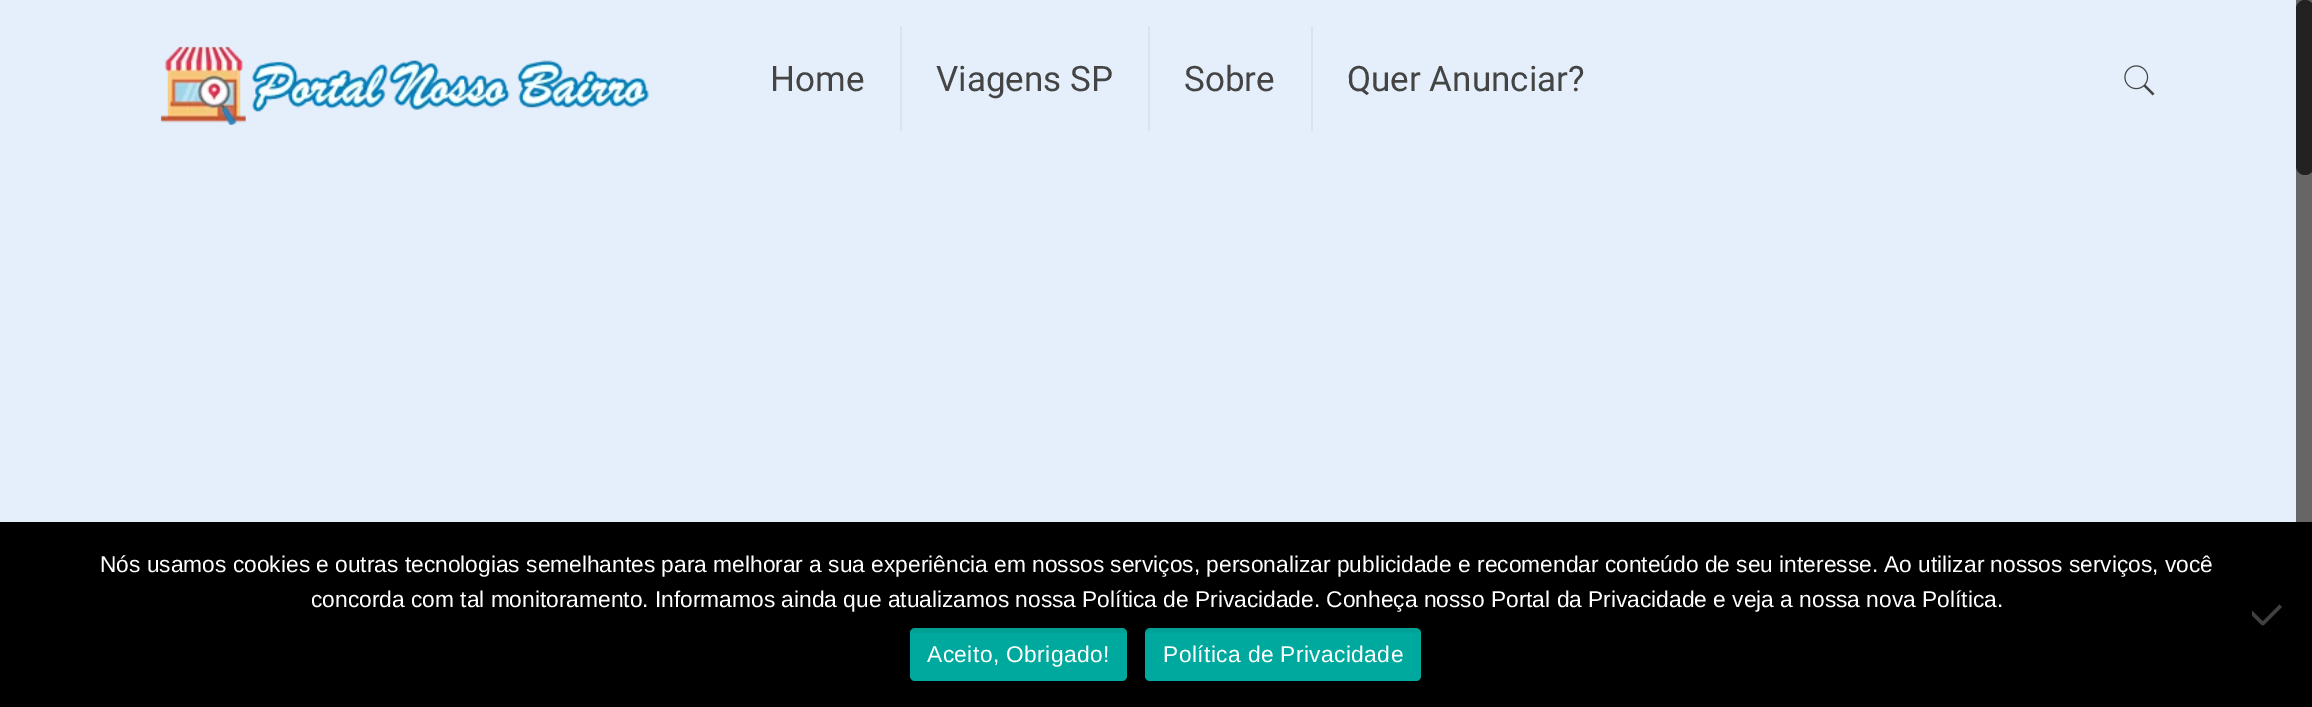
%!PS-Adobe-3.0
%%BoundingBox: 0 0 2312 707
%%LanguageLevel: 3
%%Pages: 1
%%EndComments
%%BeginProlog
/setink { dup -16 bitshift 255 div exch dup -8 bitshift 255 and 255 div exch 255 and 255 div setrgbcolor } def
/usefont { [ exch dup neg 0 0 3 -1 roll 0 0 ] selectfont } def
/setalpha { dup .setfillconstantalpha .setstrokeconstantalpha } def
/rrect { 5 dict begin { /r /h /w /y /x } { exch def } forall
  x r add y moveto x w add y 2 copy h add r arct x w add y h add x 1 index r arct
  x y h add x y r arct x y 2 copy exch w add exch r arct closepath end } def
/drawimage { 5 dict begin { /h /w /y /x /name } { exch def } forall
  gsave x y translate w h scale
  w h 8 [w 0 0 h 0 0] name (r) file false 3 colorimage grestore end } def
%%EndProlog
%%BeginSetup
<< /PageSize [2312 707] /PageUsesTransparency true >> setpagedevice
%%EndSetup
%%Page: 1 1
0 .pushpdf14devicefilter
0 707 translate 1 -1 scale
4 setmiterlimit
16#E4EFFB setink
0 0 2312 707 rectfill
(img1.raw) 160 46 489 79 drawimage
16#D9E3EE setink
900 26 2 105 rectfill
/Roboto-Regular 35 usefont
16#444444 setink
770 91 moveto (Home) show
16#D9E3EE setink
1148 26 2 105 rectfill
16#444444 setink
936 91 moveto (Viagens SP) show
16#D9E3EE setink
1311 26 2 105 rectfill
16#444444 setink
1184 91 moveto (Sobre) show
1347 91 moveto (Quer Anunciar?) show
(img2.raw) 2124 65 31 31 drawimage
16#666666 setink
2296 0 16 522 rectfill
16#222222 setink
2296 0 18 175 9 rrect fill
16#000000 setink
0 522 2312 185 rectfill
/LiberationSans-Regular 22.75 usefont
16#FFFFFF setink
100 572 moveto (Nós usamos cookies e outras tecnologias semelhantes para melhorar a sua experiência em nossos serviços, personalizar publicidade e recomendar conteúdo de seu interesse. Ao utilizar nossos serviços, você) show
311 607 moveto (concorda com tal monitoramento. Informamos ainda que atualizamos nossa Política de Privacidade. Conheça nosso Portal da Privacidade e veja a nossa nova Política.) show
16#404040 setink
2279.5 604.5 moveto 2282 607 lineto 2263.5 625.5 lineto 2261 623 lineto closepath fill
2252 615.5 moveto 2252 610.5 lineto 2264.5 623 lineto 2262 625.5 lineto closepath fill
16#00A99D setink
910 628 217 53 5 rrect fill
0.05 setalpha
16#000000 setink
911 628 215 5 rectfill
1 setalpha
16#FFFFFF setink
927 662 moveto 0.4 0 (Aceito, Obrigado!) ashow
16#00A99D setink
1145 628 276 53 5 rrect fill
(img3.raw) 1145 628 275 5 drawimage
16#FFFFFF setink
1163 662 moveto 0.4 0 (Política de Privacidade) ashow
.poppdf14devicefilter showpage
%%EOF
